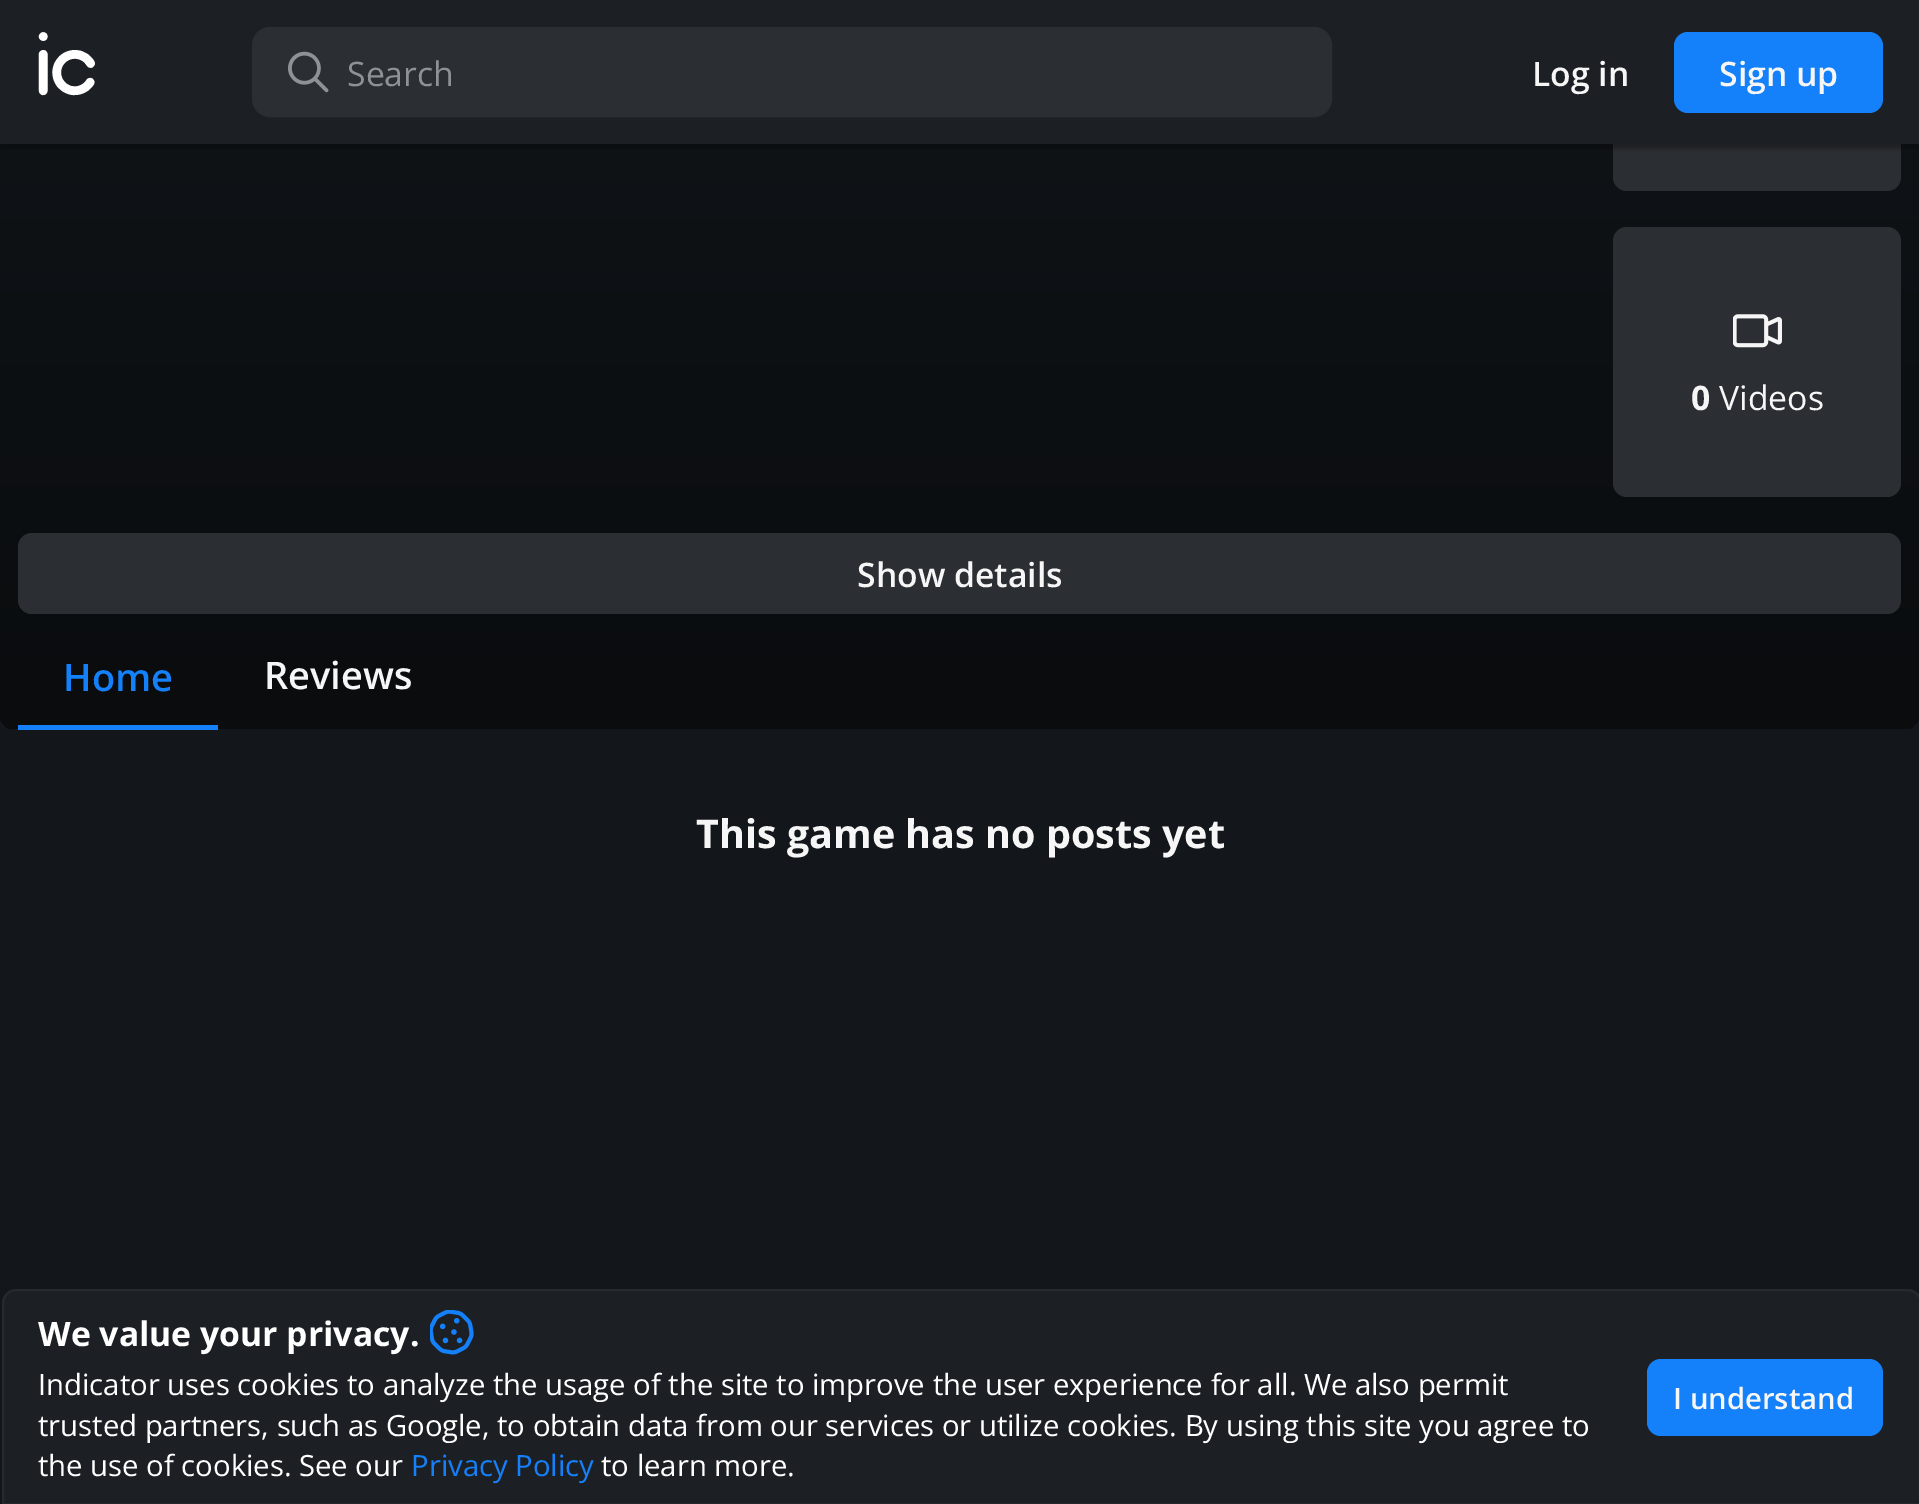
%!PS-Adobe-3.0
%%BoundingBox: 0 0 1919 1504
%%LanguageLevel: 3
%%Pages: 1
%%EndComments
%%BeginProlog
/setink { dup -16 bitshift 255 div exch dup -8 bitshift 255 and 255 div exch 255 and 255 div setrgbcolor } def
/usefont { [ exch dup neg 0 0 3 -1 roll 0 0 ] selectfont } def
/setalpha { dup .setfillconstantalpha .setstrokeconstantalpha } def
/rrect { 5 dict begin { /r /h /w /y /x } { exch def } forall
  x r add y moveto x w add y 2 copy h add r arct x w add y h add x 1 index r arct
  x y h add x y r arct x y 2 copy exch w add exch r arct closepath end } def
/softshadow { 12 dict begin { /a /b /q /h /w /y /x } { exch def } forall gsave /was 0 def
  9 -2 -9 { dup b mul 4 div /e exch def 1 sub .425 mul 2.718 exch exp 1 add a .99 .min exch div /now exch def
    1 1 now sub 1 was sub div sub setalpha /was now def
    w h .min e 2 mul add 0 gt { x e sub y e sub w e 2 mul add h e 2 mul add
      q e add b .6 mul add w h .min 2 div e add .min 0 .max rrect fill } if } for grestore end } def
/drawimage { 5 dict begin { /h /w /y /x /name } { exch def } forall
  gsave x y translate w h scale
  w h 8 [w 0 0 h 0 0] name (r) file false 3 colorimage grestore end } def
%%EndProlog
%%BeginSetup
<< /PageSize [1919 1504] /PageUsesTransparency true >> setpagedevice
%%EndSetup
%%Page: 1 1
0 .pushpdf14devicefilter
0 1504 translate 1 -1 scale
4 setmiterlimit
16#13171B setink
0 0 1919 1504 rectfill
gsave 0 -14 1919 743 14 rrect clip newpath
<< /ShadingType 2 /ColorSpace /DeviceRGB /Coords [960 729 960 -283] /Extend [true true] /Function << /FunctionType 2 /Domain [0 1] /C0 [0.039 0.047 0.055] /C1 [0.075 0.09 0.11] /N 1 >> >> shfill grestore
16#2B2E32 setink
1613 -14 288 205 14 rrect fill
16#000000 setink
0 5 1919 144 0 2 0.3 softshadow
16#1C2024 setink
0 0 1919 144 rectfill
/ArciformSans-Regular 90 usefont
16#FFFFFF setink
36 95 moveto (ic) show
16#2B2E32 setink
254.5 29.5 1075 85 15.5 rrect gsave fill grestore
5 setlinewidth
stroke
(img1.raw) 288 51 41 42 drawimage
/OpenSans-Regular 33.75 usefont
16#8E9297 setink
347 86 moveto (Search) show
/OpenSans-SemiBold 33.75 usefont
16#F6F6F6 setink
1532 86 moveto (Log in) show
16#1480F9 setink
1674 32 209 81 14 rrect fill
16#F6F6F6 setink
1719 86 moveto (Sign up) show
16#2B2E32 setink
1613 227 288 270 14 rrect fill
(img2.raw) 1733 314 49 34 drawimage
/OpenSans-Bold 33.75 usefont
16#F6F6F6 setink
1691 410 moveto (0) show
/OpenSans-Regular 33.75 usefont
1719 410 moveto (Videos) show
16#2B2E32 setink
18 533 1883 81 14 rrect fill
/OpenSans-SemiBold 33.75 usefont
16#F6F6F6 setink
857 587 moveto (Show details) show
16#1480F9 setink
18 725 200 5 rectfill
/OpenSans-SemiBold 38 usefont
63 691 moveto (Home) show
16#F6F6F6 setink
264 689 moveto (Reviews) show
/OpenSans-Bold 39.5 usefont
696 848 moveto (This game has no posts yet) show
16#1C2024 setink
16 1290 moveto 1908 1290 lineto 1915 1290 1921 1296 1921 1303 curveto 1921 1504 lineto 3 1504 lineto 3 1303 lineto 3 1296 9 1290 16 1290 curveto closepath gsave fill grestore
16#252A2F setink
2 setlinewidth
stroke
/OpenSans-Bold 33.75 usefont
16#FFFFFF setink
38 1346 moveto (We value your privacy.) show
(img3.raw) 430 1310 44 45 drawimage
/OpenSans-Regular 29.25 usefont
[
    [(Indicator uses cookies to analyze the usage of the site to improve the user experience for all. We also permit) 38 1395]
    [(trusted partners, such as Google, to obtain data from our services or utilize cookies. By using this site you agree to) 38 1436]
    [(the use of cookies. See our) 38 1476]
] { aload pop moveto show } forall
16#1480F9 setink
411 1476 moveto (Privacy Policy) show
16#FFFFFF setink
601 1476 moveto (to learn more.) show
16#1480F9 setink
1647 1359 236 77 14 rrect fill
/OpenSans-SemiBold 29.25 usefont
16#F6F6F6 setink
1673 1409 moveto (I understand) show
.poppdf14devicefilter showpage
%%EOF
